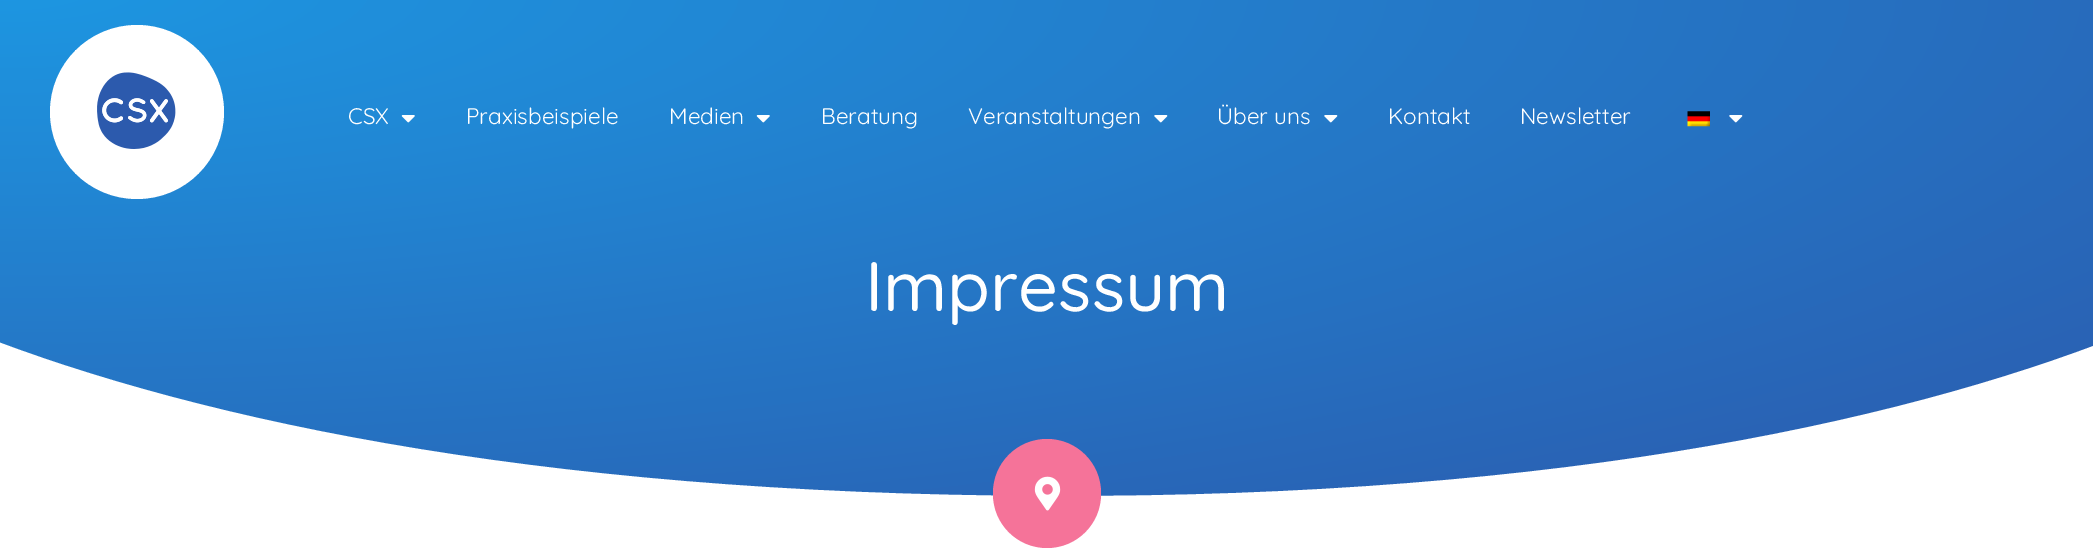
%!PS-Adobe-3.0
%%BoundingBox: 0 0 2093 548
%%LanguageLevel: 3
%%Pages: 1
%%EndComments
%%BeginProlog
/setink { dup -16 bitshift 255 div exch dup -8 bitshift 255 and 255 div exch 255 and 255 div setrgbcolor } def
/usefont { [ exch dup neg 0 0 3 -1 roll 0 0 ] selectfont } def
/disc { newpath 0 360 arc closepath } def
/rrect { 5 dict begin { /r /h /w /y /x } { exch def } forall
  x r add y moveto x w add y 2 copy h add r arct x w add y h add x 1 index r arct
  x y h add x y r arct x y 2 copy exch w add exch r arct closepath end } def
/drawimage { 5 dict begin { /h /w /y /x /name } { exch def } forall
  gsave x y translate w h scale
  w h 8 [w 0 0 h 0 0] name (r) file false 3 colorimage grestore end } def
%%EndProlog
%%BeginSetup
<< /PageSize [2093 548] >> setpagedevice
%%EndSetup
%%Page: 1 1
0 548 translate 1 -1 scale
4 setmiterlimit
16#FFFFFF setink
0 0 2093 548 rectfill
gsave 0 0 moveto 2093 0 lineto 2093 496 lineto 0 496 lineto closepath clip newpath 0 -12 translate 2961 735 scale
<< /ShadingType 3 /ColorSpace /DeviceRGB /Coords [0 0 0 0 0 1] /Extend [true true] /Function << /FunctionType 2 /Domain [0 1] /C0 [0.114 0.592 0.886] /C1 [0.173 0.353 0.678] /N 1 >> >> shfill grestore
137 112 87 disc fill
(img1.raw) 75 50 124 124 drawimage
/Quicksand-Regular 22.5 usefont
348 124 moveto (CSX) show
(img2.raw) 401 115 14 8 drawimage
466 124 moveto (Praxisbeispiele) show
669 124 moveto (Medien) show
(img3.raw) 756 115 14 8 drawimage
821 124 moveto (Beratung) show
968 124 moveto (Veranstaltungen) show
(img4.raw) 1154 115 14 8 drawimage
1217 124 moveto (Über uns) show
(img5.raw) 1324 115 14 8 drawimage
1388 124 moveto (Kontakt) show
1520 124 moveto (Newsletter) show
(img6.raw) 1687 111 23 16 drawimage
(img7.raw) 1729 115 14 8 drawimage
/Quicksand-Medium 70 usefont
865 311 moveto (Impressum) show
1047 496 moveto 0 493 -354 176 -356 94 curveto -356 509 lineto 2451 509 lineto 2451 98 lineto 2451 174 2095 500 1047 496 curveto closepath fill
16#F57399 setink
993 439 108 109 54 rrect fill
(img8.raw) 1034 476 27 35 drawimage
showpage
%%EOF
